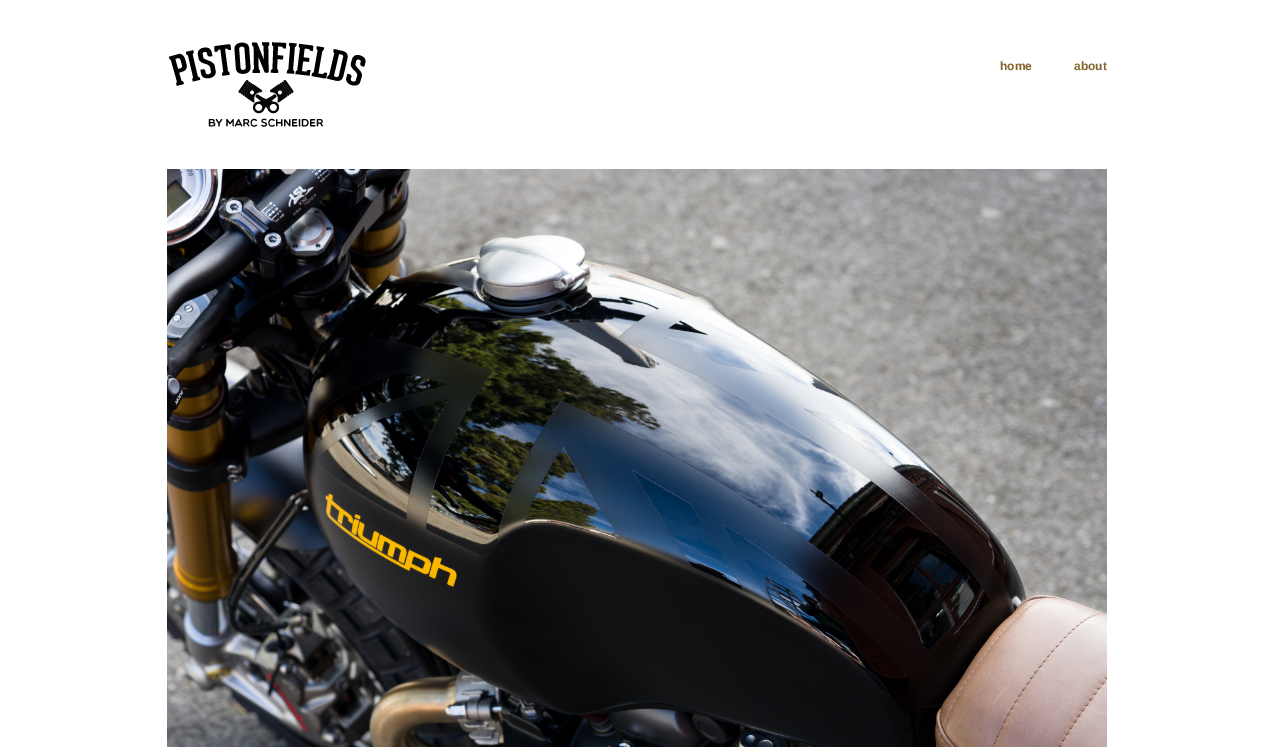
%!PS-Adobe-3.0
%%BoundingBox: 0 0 1273 747
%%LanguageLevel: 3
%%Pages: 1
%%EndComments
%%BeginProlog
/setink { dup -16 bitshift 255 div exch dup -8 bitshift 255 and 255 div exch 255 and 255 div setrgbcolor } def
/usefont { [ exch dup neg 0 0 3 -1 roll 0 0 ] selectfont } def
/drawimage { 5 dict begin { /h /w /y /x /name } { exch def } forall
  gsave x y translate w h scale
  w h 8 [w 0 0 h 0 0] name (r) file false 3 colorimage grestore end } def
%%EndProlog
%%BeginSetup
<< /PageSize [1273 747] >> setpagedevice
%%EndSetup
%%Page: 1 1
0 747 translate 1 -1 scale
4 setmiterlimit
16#FFFFFF setink
0 0 1273 747 rectfill
(img1.raw) 168 42 198 85 drawimage
/LiberationSans-Bold 12 usefont
16#84642C setink
1000 70 moveto (home) show
1074 70 moveto (about) show
(img2.raw) 167 169 940 578 drawimage
showpage
%%EOF
